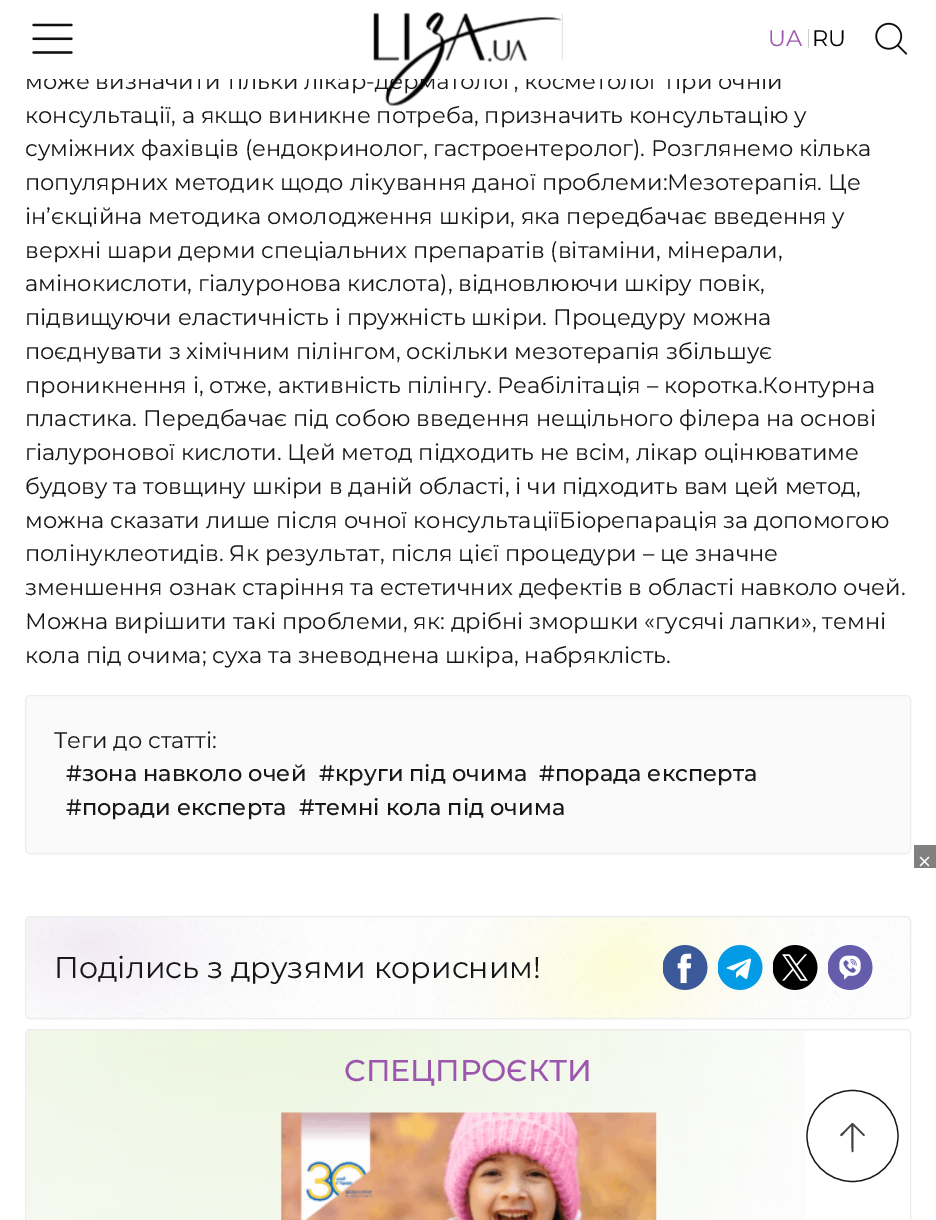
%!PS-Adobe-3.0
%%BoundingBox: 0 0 936 1220
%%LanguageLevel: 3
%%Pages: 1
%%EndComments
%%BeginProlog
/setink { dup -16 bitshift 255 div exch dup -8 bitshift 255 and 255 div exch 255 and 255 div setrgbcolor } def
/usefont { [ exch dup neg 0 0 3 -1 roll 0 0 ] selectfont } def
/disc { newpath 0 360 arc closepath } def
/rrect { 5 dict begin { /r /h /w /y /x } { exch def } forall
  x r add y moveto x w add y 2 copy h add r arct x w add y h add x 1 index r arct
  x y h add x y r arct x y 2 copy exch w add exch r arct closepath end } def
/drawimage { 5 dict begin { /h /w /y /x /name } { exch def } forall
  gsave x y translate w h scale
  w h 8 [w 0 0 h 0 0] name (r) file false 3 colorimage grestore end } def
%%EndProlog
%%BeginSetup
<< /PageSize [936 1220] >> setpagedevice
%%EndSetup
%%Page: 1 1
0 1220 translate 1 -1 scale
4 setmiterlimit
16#FFFFFF setink
0 0 936 1220 rectfill
/Montserrat-Regular 22.5 usefont
16#171717 setink
25 89 moveto (може визначити тільки лікар-дерматолог, косметолог при очній) show
16#FFFFFF setink
27 72 754 7 rectfill
16#171717 setink
25 123 moveto (консультації, а якщо виникне потреба, призначить консультацію у) show
(img1.raw) 373 12 190 94 drawimage
(img2.raw) 32 23 41 31 drawimage
16#9C56AE setink
768 46 moveto (UA) show
16#CCCCCC setink
808 29 1 19 rectfill
16#000000 setink
812 46 moveto (RU) show
(img3.raw) 875 22 33 33 drawimage
16#171717 setink
[
    [(суміжних фахівців \(ендокринолог, гастроентеролог\). Розглянемо кілька) 25 156]
    [(популярних методик щодо лікування даної проблеми:Мезотерапія. Це) 25 190]
    [(ін’єкційна методика омолодження шкіри, яка передбачає введення у) 25 224]
    [(верхні шари дерми спеціальних препаратів \(вітаміни, мінерали,) 25 258]
    [(амінокислоти, гіалуронова кислота\), відновлюючи шкіру повік,) 25 291]
    [(підвищуючи еластичність і пружність шкіри. Процедуру можна) 25 325]
    [(поєднувати з хімічним пілінгом, оскільки мезотерапія збільшує) 25 359]
    [(проникнення і, отже, активність пілінгу. Реабілітація – коротка.Контурна) 25 393]
    [(пластика. Передбачає під собою введення нещільного філера на основі) 25 426]
    [(гіалуронової кислоти. Цей метод підходить не всім, лікар оцінюватиме) 25 460]
    [(будову та товщину шкіри в даній області, і чи підходить вам цей метод,) 25 494]
    [(можна сказати лише після очної консультаціїБіорепарація за допомогою) 25 528]
    [(полінуклеотидів. Як результат, після цієї процедури – це значне) 25 561]
    [(зменшення ознак старіння та естетичних дефектів в області навколо очей.) 25 595]
    [(Можна вирішити такі проблеми, як: дрібні зморшки «гусячі лапки», темні) 25 629]
    [(кола під очима; суха та зневоднена шкіра, набряклість.) 25 663]
] { aload pop moveto show } forall
16#FAFAFA setink
25.5 695.5 885 158 4.5 rrect gsave fill grestore
16#ECECEC setink
stroke
16#171717 setink
54 748 moveto (Теги до статті:) show
/Montserrat-Medium 22.5 usefont
[
    [(#зона навколо очей) 66 781]
    [(#круги під очима) 319 781]
    [(#порада експерта) 539 781]
    [(#поради експерта) 66 815]
    [(#темні кола під очима) 299 815]
] { aload pop moveto show } forall
(img4.raw) 26 916 884 103 drawimage
16#ECECEC setink
25.5 916.5 885 102 4.5 rrect stroke
/Montserrat-Regular 30 usefont
16#171717 setink
54 978 moveto (Поділись з друзями корисним!) show
(img5.raw) 663 945 45 45 drawimage
(img6.raw) 718 945 45 45 drawimage
(img7.raw) 773 945 45 45 drawimage
(img8.raw) 828 945 45 45 drawimage
(img9.raw) 26 1029 779 191 drawimage
16#ECECEC setink
25.5 1029.5 885 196 4.5 rrect stroke
/Montserrat-Medium 30 usefont
16#9C56AE setink
344 1081 moveto (СПЕЦПРОЄКТИ) show
(img10.raw) 281 1112 376 108 drawimage
16#808080 setink
914 845 22 23 rectfill
/LiberationSans-Regular 22.5 usefont
16#FFFFFF setink
918 869 moveto (×) show
16#171717 setink
1.2 setlinewidth
852.5 1136 45.5 disc stroke
16#434343 setink
853 1123 moveto 864.5 1134.5 lineto 865 1135.5 864 1136.5 863 1135.5 curveto 853.5 1126 lineto 853.5 1151 lineto 853.5 1152 852.5 1152.5 852 1152 curveto 851 1151.5 851.5 1129 851.5 1126 curveto 845 1132.5 lineto 844.5 1133 842 1136.5 841 1136 curveto 839 1135 842.5 1132.5 842.5 1132.5 curveto 852 1123 lineto closepath fill
showpage
%%EOF
